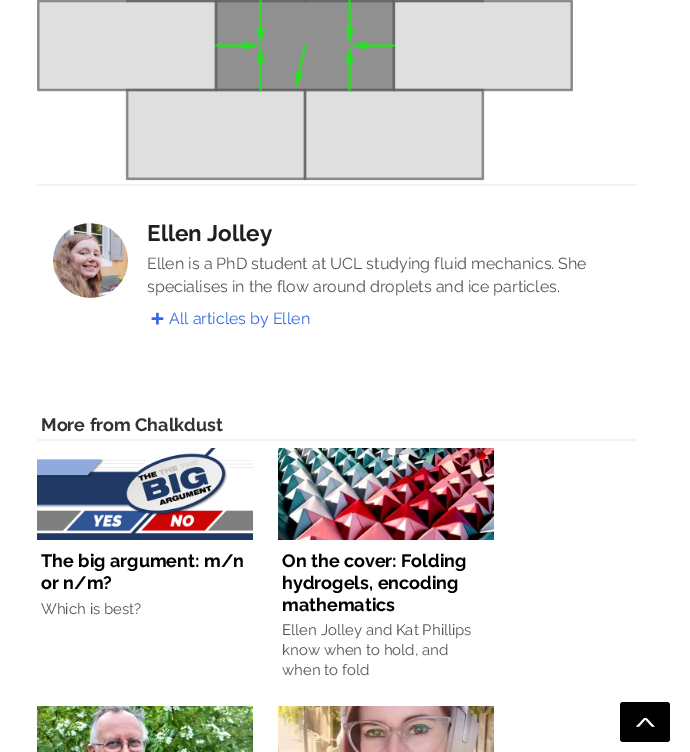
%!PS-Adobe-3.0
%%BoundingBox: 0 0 690 752
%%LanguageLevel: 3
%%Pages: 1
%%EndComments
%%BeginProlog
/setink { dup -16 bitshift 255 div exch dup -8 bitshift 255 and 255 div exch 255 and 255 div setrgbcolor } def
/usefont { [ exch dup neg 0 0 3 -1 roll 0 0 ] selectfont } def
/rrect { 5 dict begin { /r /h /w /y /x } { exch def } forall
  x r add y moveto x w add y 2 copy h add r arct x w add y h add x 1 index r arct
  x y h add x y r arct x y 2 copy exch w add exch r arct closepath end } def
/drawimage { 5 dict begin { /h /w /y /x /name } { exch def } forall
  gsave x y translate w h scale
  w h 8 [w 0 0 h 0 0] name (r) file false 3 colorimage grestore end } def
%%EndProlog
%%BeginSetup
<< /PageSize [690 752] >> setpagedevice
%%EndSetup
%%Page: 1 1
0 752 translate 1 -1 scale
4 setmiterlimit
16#FFFFFF setink
0 0 690 752 rectfill
(img1.raw) 37 0 536 181 drawimage
16#F2F2F2 setink
37 184 600 2 rectfill
(img2.raw) 53 223 75 75 drawimage
/Raleway-Bold 22.5 usefont
16#201F1F setink
147 241 moveto (Ellen Jolley) show
/Raleway-Regular 16 usefont
16#555555 setink
147 269 moveto (Ellen is a PhD student at UCL studying fluid mechanics. She) show
147 292 moveto (specialises in the flow around droplets and ice particles.) show
(img3.raw) 151 312 13 13 drawimage
16#3467E6 setink
169 324 moveto (All articles by Ellen) show
16#F2F2F2 setink
37 439 600 2 rectfill
/Raleway-Bold 18 usefont
16#333333 setink
41 431 moveto (More from Chalkdust) show
(img4.raw) 37 448 216 92 drawimage
16#000000 setink
41 567 moveto (The big argument: m/n) show
41 589 moveto (or n/m?) show
/Raleway-Regular 15 usefont
16#555555 setink
41 614 moveto (Which is best?) show
(img5.raw) 278 448 216 92 drawimage
/Raleway-Bold 18 usefont
16#000000 setink
[
    [(On the cover: Folding) 282 567]
    [(hydrogels, encoding) 282 589]
    [(mathematics) 282 611]
] { aload pop moveto show } forall
/Raleway-Regular 15 usefont
16#555555 setink
[
    [(Ellen Jolley and Kat Phillips) 282 635]
    [(know when to hold, and) 282 655]
    [(when to fold) 282 675]
] { aload pop moveto show } forall
(img6.raw) 37 706 216 46 drawimage
(img7.raw) 278 706 216 46 drawimage
16#000000 setink
620 702 50 40 3 rrect fill
(img8.raw) 636 718 19 9 drawimage
showpage
%%EOF
